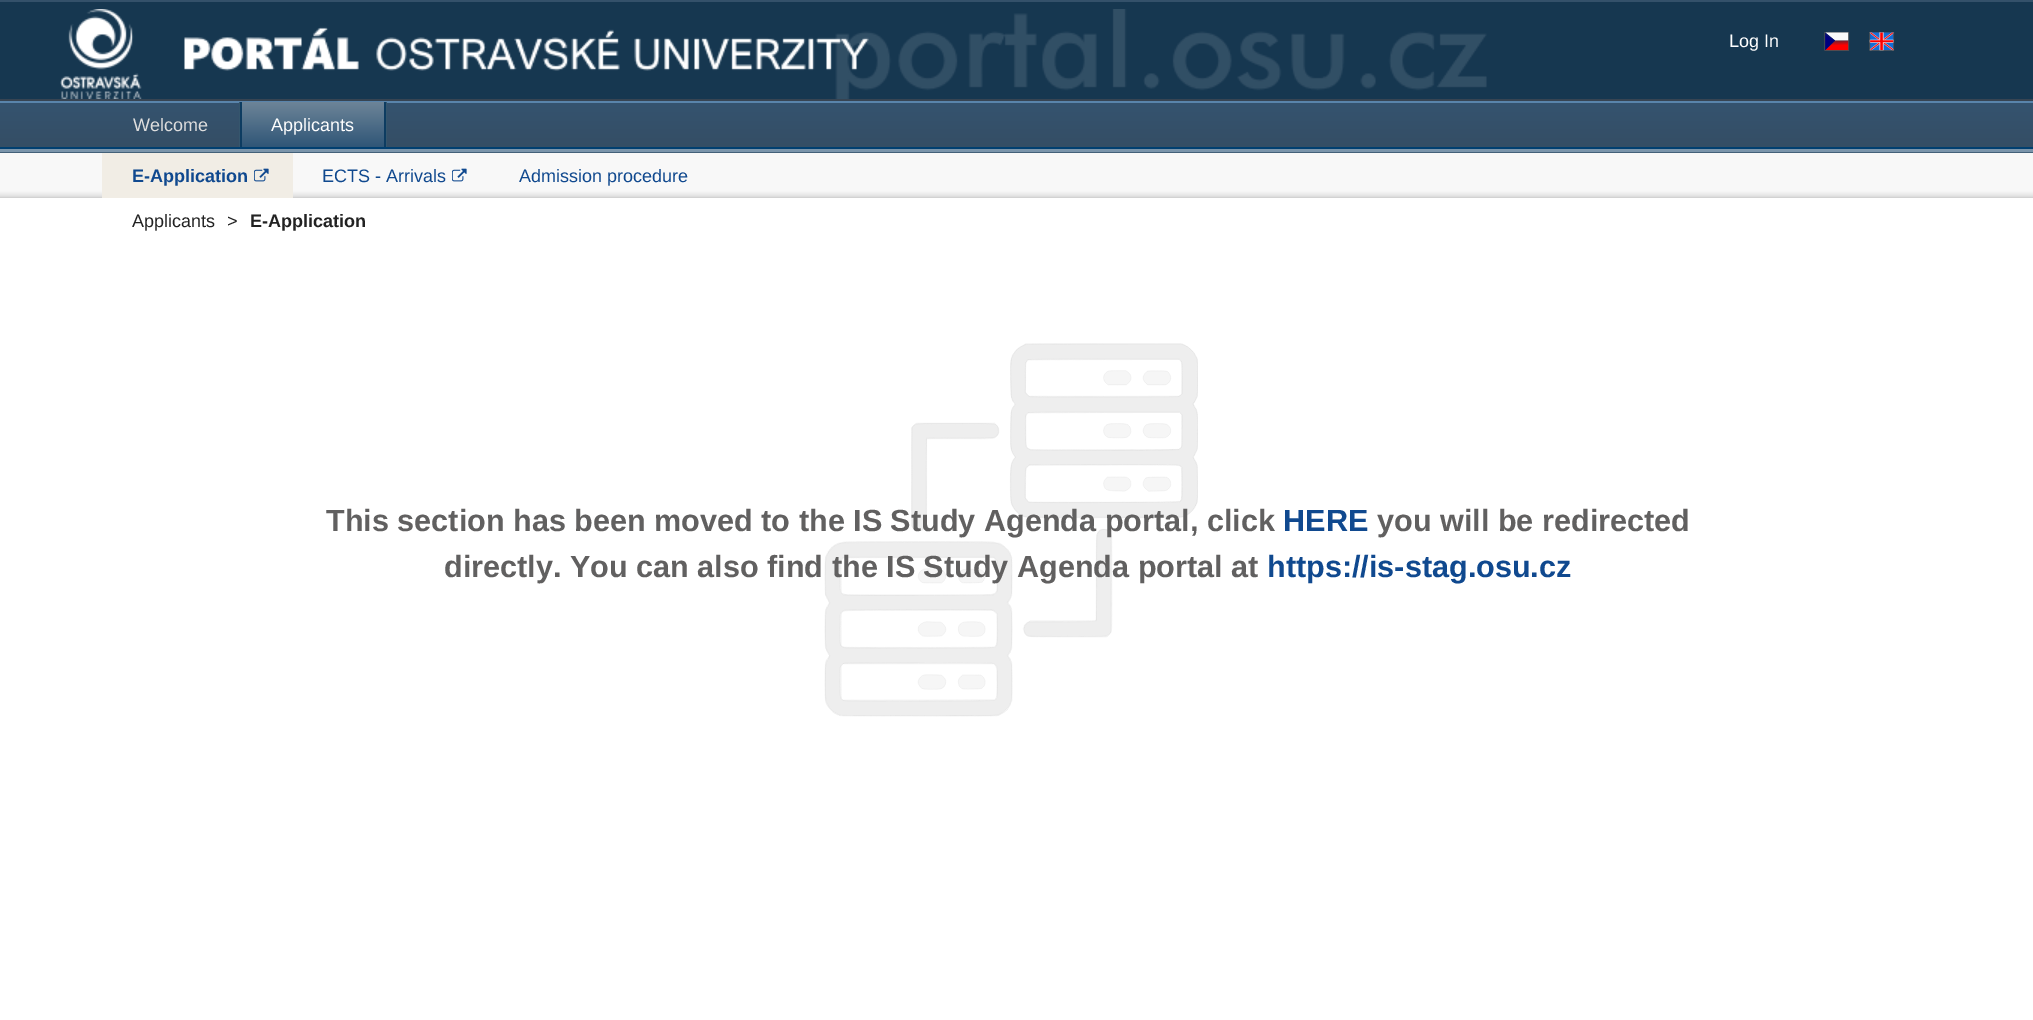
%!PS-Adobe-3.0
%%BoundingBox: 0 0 2033 1020
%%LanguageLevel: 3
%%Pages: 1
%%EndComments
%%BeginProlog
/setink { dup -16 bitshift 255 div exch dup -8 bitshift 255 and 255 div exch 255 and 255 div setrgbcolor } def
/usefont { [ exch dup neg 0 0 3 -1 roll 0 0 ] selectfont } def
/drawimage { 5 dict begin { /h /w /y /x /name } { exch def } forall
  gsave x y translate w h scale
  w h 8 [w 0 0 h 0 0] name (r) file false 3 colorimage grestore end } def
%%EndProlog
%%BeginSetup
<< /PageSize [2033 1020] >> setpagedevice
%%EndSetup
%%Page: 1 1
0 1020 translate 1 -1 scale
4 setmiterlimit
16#163750 setink
0 0 2033 1020 rectfill
(img1.raw) 60 9 1427 90 drawimage
16#34516A setink
0 0 2033 2 rectfill
16#374452 setink
0 99 2033 2 rectfill
/LiberationSans-Regular 18 usefont
16#FFFFFF setink
1729 47 moveto (Log In) show
(img2.raw) 1824 32 26 19 drawimage
(img3.raw) 1869 32 26 19 drawimage
16#7B95AB setink
0 149 2033 3 rectfill
16#446179 setink
0 152 2033 1 rectfill
gsave 0 103 moveto 2033 103 lineto 2033 147 lineto 0 147 lineto closepath clip newpath
<< /ShadingType 2 /ColorSpace /DeviceRGB /Coords [1017 102 1017 147] /Extend [true true] /Function << /FunctionType 2 /Domain [0 1] /C0 [0.204 0.325 0.435] /C1 [0.204 0.306 0.396] /N 1 >> >> shfill grestore
16#5984AB setink
0 101 2033 2 rectfill
16#003F70 setink
0 147 2033 2 rectfill
16#DDDDDD setink
133 131 moveto (Welcome) show
16#35566D setink
239 102 1 45 rectfill
386 102 1 45 rectfill
gsave 242 102 moveto 384 102 lineto 384 147 lineto 242 147 lineto closepath clip newpath
<< /ShadingType 2 /ColorSpace /DeviceRGB /Coords [313 102 313 147] /Extend [true true] /Function << /FunctionType 2 /Domain [0 1] /C0 [0.427 0.518 0.596] /C1 [0.184 0.337 0.467] /N 1 >> >> shfill grestore
16#0D3C61 setink
384 102 2 45 rectfill
240 102 2 45 rectfill
16#FFFFFF setink
271 131 moveto (Applicants) show
gsave 0 153 moveto 2033 153 lineto 2033 198 lineto 0 198 lineto closepath clip newpath
<< /ShadingType 2 /ColorSpace /DeviceRGB /Coords [1017 153 1017 198] /Extend [true true] /Function << /FunctionType 3 /Domain [0 1] /Functions [<< /FunctionType 2 /Domain [0 1] /C0 [0.973 0.973 0.973] /C1 [0.973 0.973 0.973] /N 1 >> << /FunctionType 2 /Domain [0 1] /C0 [0.973 0.973 0.973] /C1 [0.906 0.906 0.906] /N 1 >> << /FunctionType 2 /Domain [0 1] /C0 [0.906 0.906 0.906] /C1 [0.824 0.824 0.824] /N 1 >>] /Bounds [0.84 0.94] /Encode [0 1 0 1 0 1] >> >> shfill grestore
16#F1EDE5 setink
102 153 191 45 rectfill
/LiberationSans-Bold 18 usefont
16#10498F setink
132 182 moveto (E-Application) show
(img4.raw) 254 168 15 14 drawimage
/LiberationSans-Regular 18 usefont
322 182 moveto (ECTS - Arrivals) show
(img5.raw) 452 168 15 14 drawimage
519 182 moveto (Admission procedure) show
16#FFFFFF setink
0 198 2033 822 rectfill
16#222222 setink
132 227 moveto (Applicants) show
227 227 moveto (>) show
/LiberationSans-Bold 18 usefont
250 227 moveto (E-Application) show
(img6.raw) 824 343 374 374 drawimage
/LiberationSans-Bold 30.6 usefont
16#616060 setink
326 531 moveto (This section has been moved to the IS Study Agenda portal, click) show
16#10498F setink
1283 531 moveto (HERE) show
16#616060 setink
1377 531 moveto (you will be redirected) show
444 577 moveto (directly. You can also find the IS Study Agenda portal at) show
16#10498F setink
1267 577 moveto (https://is-stag.osu.cz) show
showpage
%%EOF
